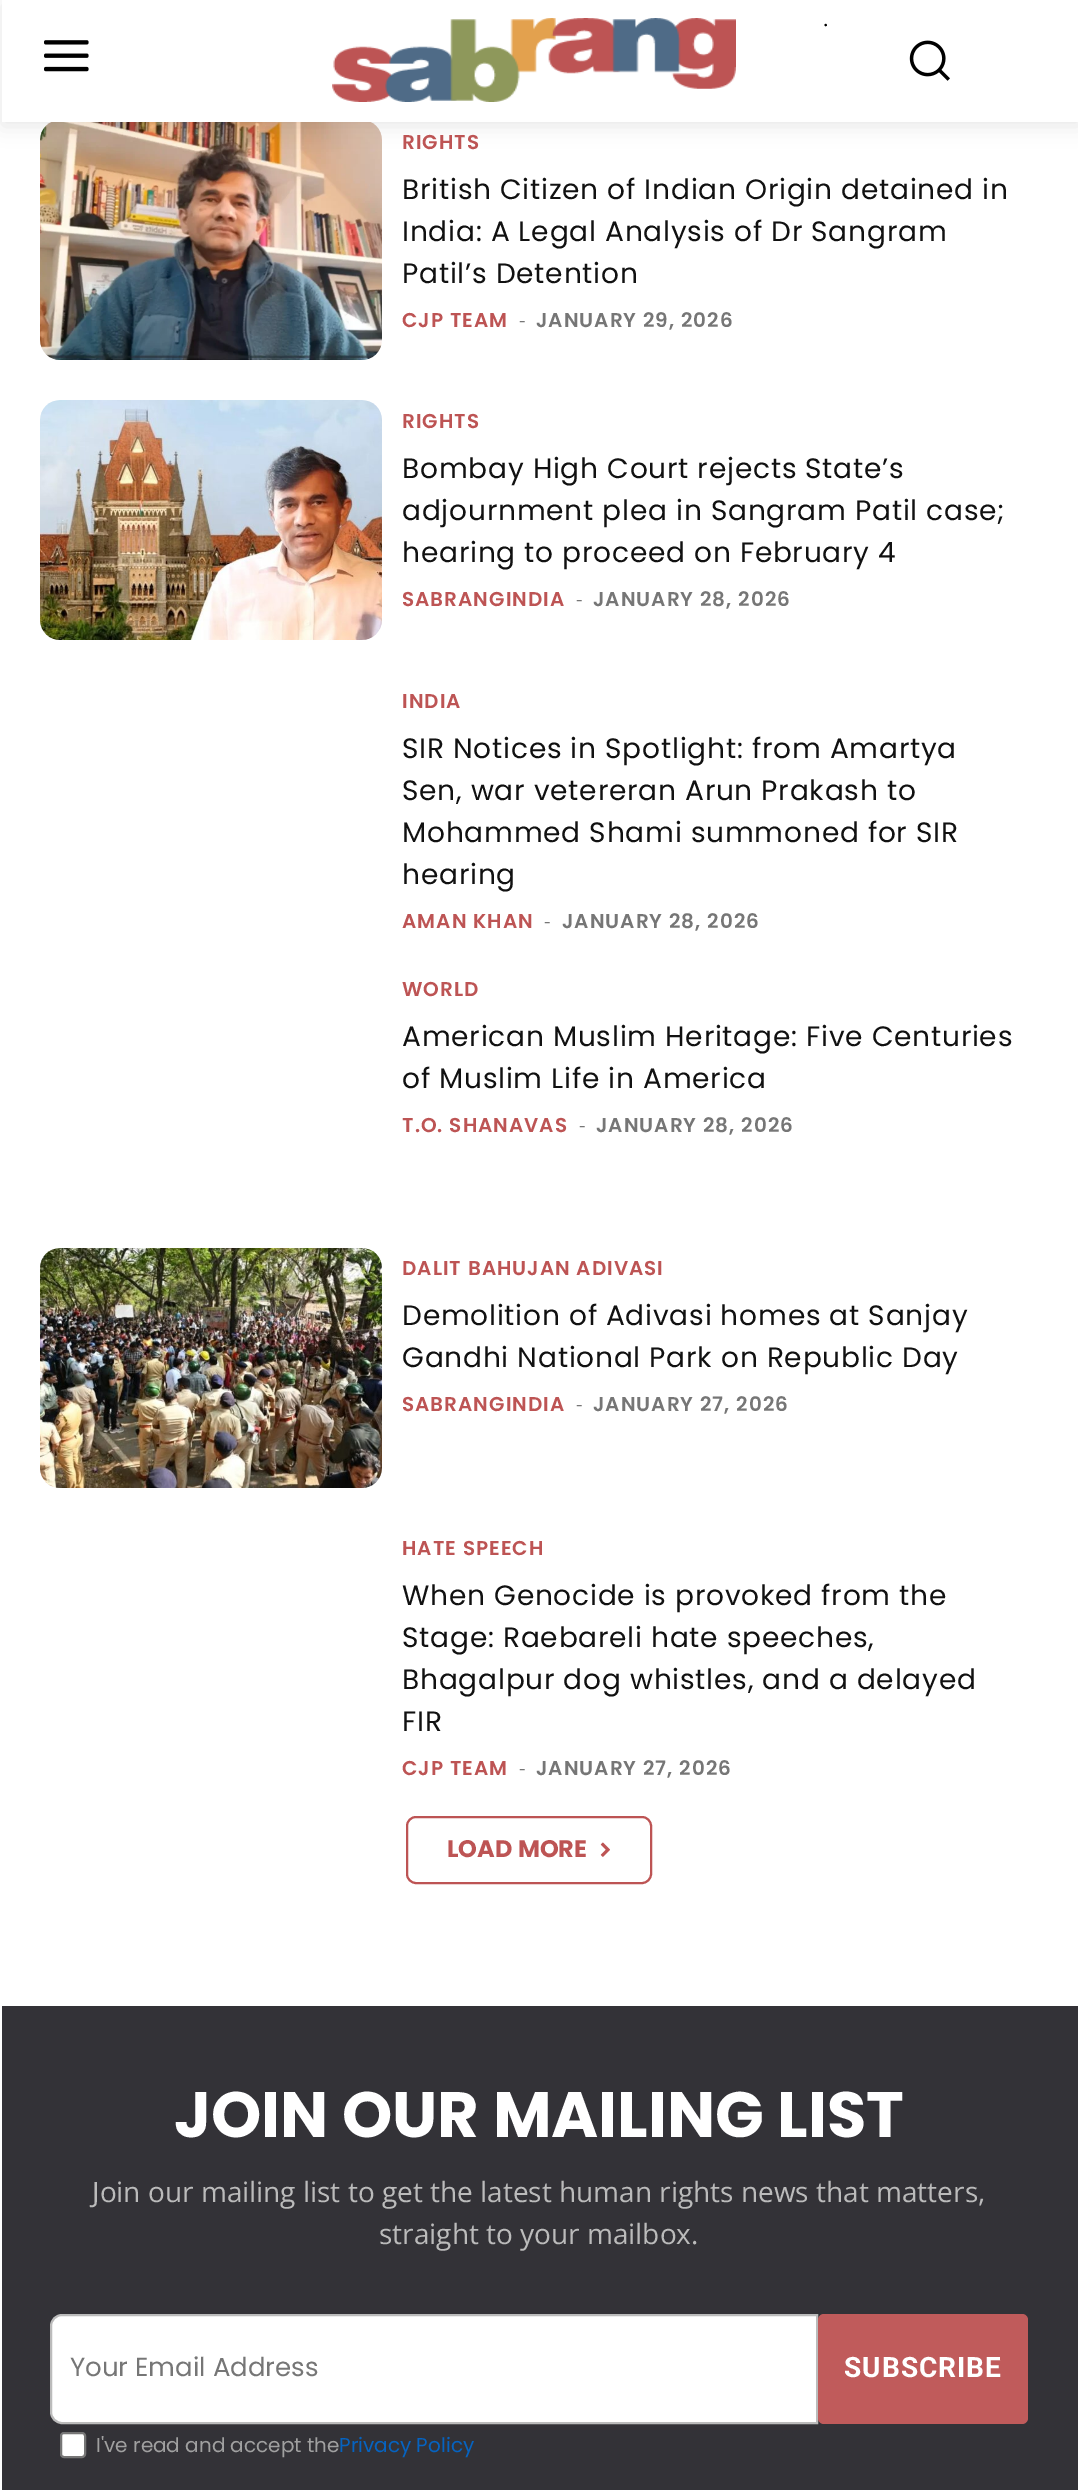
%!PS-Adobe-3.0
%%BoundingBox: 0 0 1078 2490
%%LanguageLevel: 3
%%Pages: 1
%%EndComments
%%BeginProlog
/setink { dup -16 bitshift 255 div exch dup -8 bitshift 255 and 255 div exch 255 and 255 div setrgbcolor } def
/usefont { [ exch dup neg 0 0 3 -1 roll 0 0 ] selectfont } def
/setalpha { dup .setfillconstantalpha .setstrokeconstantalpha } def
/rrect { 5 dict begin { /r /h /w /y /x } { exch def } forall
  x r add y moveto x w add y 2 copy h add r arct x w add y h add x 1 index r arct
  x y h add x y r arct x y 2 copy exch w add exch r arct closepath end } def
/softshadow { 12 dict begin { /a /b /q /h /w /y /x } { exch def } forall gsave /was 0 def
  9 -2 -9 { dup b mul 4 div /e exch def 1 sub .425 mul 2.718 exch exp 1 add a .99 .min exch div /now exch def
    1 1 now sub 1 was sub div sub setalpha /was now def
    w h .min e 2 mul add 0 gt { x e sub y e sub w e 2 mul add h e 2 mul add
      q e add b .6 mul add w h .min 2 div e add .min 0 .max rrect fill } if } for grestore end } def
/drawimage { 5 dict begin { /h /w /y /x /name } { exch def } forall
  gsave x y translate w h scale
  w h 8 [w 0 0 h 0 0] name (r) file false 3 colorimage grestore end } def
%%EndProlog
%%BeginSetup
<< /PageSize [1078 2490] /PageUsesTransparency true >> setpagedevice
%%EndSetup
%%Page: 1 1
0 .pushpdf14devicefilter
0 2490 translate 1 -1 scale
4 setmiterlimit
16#FFFFFF setink
0 0 1078 2490 rectfill
(img1.raw) 332 18 404 84 drawimage
(img2.raw) 44 40 45 32 drawimage
(img3.raw) 909 40 41 41 drawimage
(img4.raw) 40 122 342 238 drawimage
gsave
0 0 moveto 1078 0 lineto 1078 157 lineto 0 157 lineto closepath 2 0 moveto 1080 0 lineto 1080 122 lineto 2 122 lineto closepath eoclip newpath
16#000000 setink
2 4 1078 122 0 10 0.09 softshadow
grestore
/LiberationSerif-Regular 22 usefont
16#000000 setink
823 26 moveto 4 0 (.) ashow
/Poppins-SemiBold 20 usefont
16#BD5454 setink
402 149 moveto 1 0 (RIGHTS) ashow
/Poppins-Regular 28 usefont
16#111111 setink
402 199 moveto 0.8 0 (British Citizen of Indian Origin detained in) ashow
402 241 moveto 0.8 0 (India: A Legal Analysis of Dr Sangram) ashow
402 283 moveto 0.8 0 (Patil’s Detention) ashow
/Poppins-SemiBold 20 usefont
16#BD5454 setink
402 327 moveto 1 0 (CJP TEAM) ashow
/OpenSans-Regular 20 usefont
16#767676 setink
519 327 moveto 1 0 (-) ashow
/Poppins-SemiBold 20 usefont
536 327 moveto 1 0 (JANUARY 29, 2026) ashow
(img5.raw) 40 400 342 240 drawimage
16#BD5454 setink
402 428 moveto 1 0 (RIGHTS) ashow
/Poppins-Regular 28 usefont
16#111111 setink
402 478 moveto 0.8 0 (Bombay High Court rejects State’s) ashow
402 520 moveto 0.8 0 (adjournment plea in Sangram Patil case;) ashow
402 562 moveto 0.8 0 (hearing to proceed on February 4) ashow
/Poppins-SemiBold 20 usefont
16#BD5454 setink
402 606 moveto 1 0 (SABRANGINDIA) ashow
/OpenSans-Regular 20 usefont
16#767676 setink
576 606 moveto 1 0 (-) ashow
/Poppins-SemiBold 20 usefont
593 606 moveto 1 0 (JANUARY 28, 2026) ashow
16#BD5454 setink
402 708 moveto 1 0 (INDIA) ashow
/Poppins-Regular 28 usefont
16#111111 setink
402 758 moveto 0.8 0 (SIR Notices in Spotlight: from Amartya) ashow
402 800 moveto 0.8 0 (Sen, war vetereran Arun Prakash to) ashow
402 842 moveto 0.8 0 (Mohammed Shami summoned for SIR) ashow
402 884 moveto 0.8 0 (hearing) ashow
/Poppins-SemiBold 20 usefont
16#BD5454 setink
402 928 moveto 1 0 (AMAN KHAN) ashow
/OpenSans-Regular 20 usefont
16#767676 setink
544 928 moveto 1 0 (-) ashow
/Poppins-SemiBold 20 usefont
562 928 moveto 1 0 (JANUARY 28, 2026) ashow
16#BD5454 setink
402 996 moveto 1 0 (WORLD) ashow
/Poppins-Regular 28 usefont
16#111111 setink
402 1046 moveto 0.8 0 (American Muslim Heritage: Five Centuries) ashow
402 1088 moveto 0.8 0 (of Muslim Life in America) ashow
/Poppins-SemiBold 20 usefont
16#BD5454 setink
402 1132 moveto 1 0 (T.O. SHANAVAS) ashow
/OpenSans-Regular 20 usefont
16#767676 setink
579 1132 moveto 1 0 (-) ashow
/Poppins-SemiBold 20 usefont
596 1132 moveto 1 0 (JANUARY 28, 2026) ashow
(img6.raw) 40 1248 342 240 drawimage
16#BD5454 setink
402 1275 moveto 1 0 (DALIT BAHUJAN ADIVASI) ashow
/Poppins-Regular 28 usefont
16#111111 setink
402 1325 moveto 0.8 0 (Demolition of Adivasi homes at Sanjay) ashow
402 1367 moveto 0.8 0 (Gandhi National Park on Republic Day) ashow
/Poppins-SemiBold 20 usefont
16#BD5454 setink
402 1411 moveto 1 0 (SABRANGINDIA) ashow
/OpenSans-Regular 20 usefont
16#767676 setink
576 1411 moveto 1 0 (-) ashow
/Poppins-SemiBold 20 usefont
593 1411 moveto 1 0 (JANUARY 27, 2026) ashow
16#BD5454 setink
402 1555 moveto 1 0 (HATE SPEECH) ashow
/Poppins-Regular 28 usefont
16#111111 setink
402 1605 moveto 0.8 0 (When Genocide is provoked from the) ashow
402 1647 moveto 0.8 0 (Stage: Raebareli hate speeches,) ashow
402 1689 moveto 0.8 0 (Bhagalpur dog whistles, and a delayed) ashow
402 1731 moveto 0.8 0 (FIR) ashow
/Poppins-SemiBold 20 usefont
16#BD5454 setink
402 1775 moveto 1 0 (CJP TEAM) ashow
/OpenSans-Regular 20 usefont
16#767676 setink
519 1775 moveto 1 0 (-) ashow
/Poppins-SemiBold 20 usefont
536 1775 moveto 1 0 (JANUARY 27, 2026) ashow
16#BD5454 setink
2 setlinewidth
407 1817 244 66 9 rrect stroke
/Poppins-Bold 24 usefont
447 1857 moveto (LOAD MORE) show
(img7.raw) 600 1842 10 15 drawimage
16#333237 setink
2 2006 1076 484 rectfill
/Poppins-Bold 64 usefont
16#FFFFFF setink
174 2137 moveto (JOIN OUR MAILING LIST) show
/OpenSans-Regular 28 usefont
16#BBBBBB setink
92 2202 moveto (Join our mailing list to get the latest human rights news that matters,) show
379 2244 moveto (straight to your mailbox.) show
16#FFFFFF setink
62 2315 moveto 817 2315 lineto 817 2423 lineto 62 2423 lineto 56 2423 51 2418 51 2412 curveto 51 2326 lineto 51 2320 56 2315 62 2315 curveto closepath gsave fill grestore
16#BBBBBB setink
stroke
/Poppins-Regular 26 usefont
16#767676 setink
70 2376 moveto (Your Email Address) show
16#C05B5B setink
818 2314 210 110 6 rrect fill
/Roboto-Bold 28 usefont
16#FFFFFF setink
844 2377 moveto 1 0 (SUBSCRIBE) ashow
61 2433 24 24 3 rrect gsave fill grestore
16#767676 setink
stroke
/Poppins-Regular 20 usefont
16#A0A0A0 setink
96 2452 moveto (I've read and accept the) show
16#0563C1 setink
339 2452 moveto (Privacy Policy) show
.poppdf14devicefilter showpage
%%EOF
